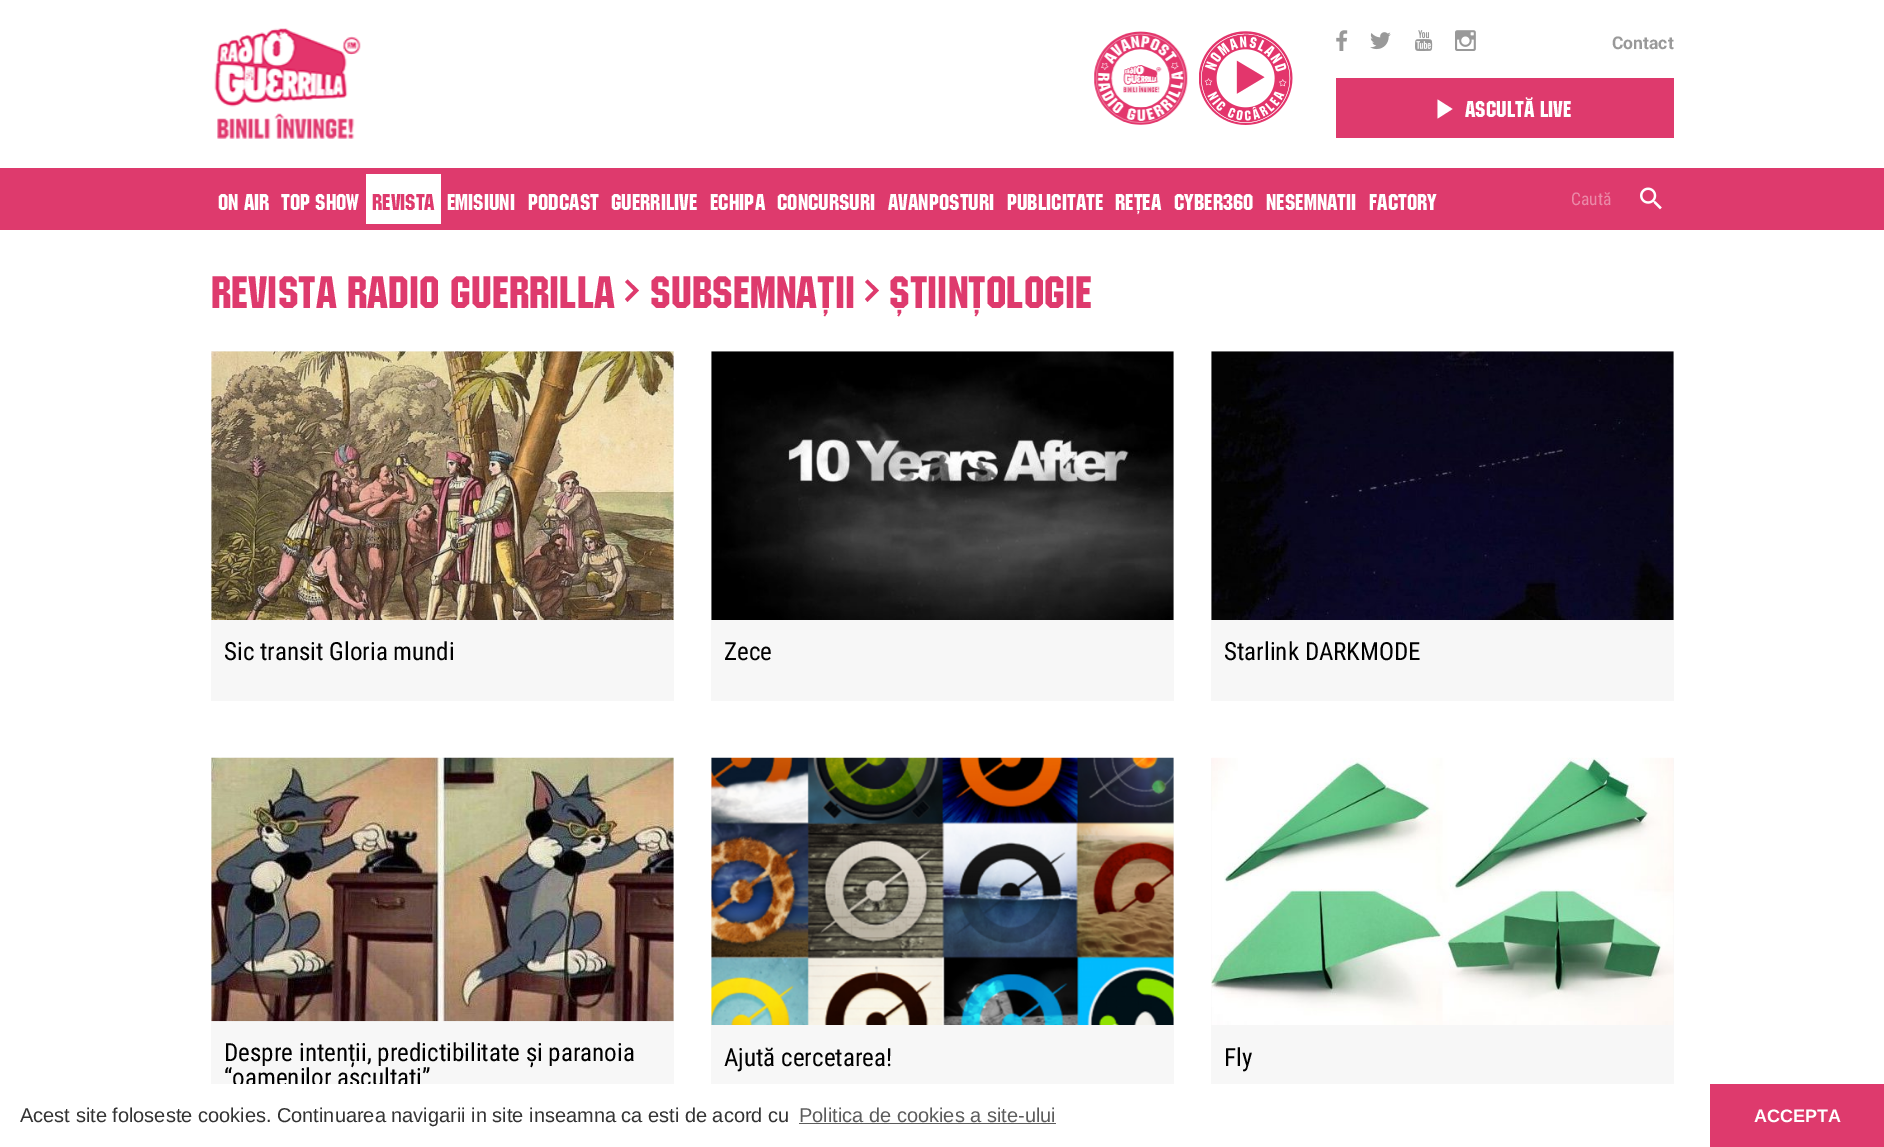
%!PS-Adobe-3.0
%%BoundingBox: 0 0 1884 1147
%%LanguageLevel: 3
%%Pages: 1
%%EndComments
%%BeginProlog
/setink { dup -16 bitshift 255 div exch dup -8 bitshift 255 and 255 div exch 255 and 255 div setrgbcolor } def
/usefont { [ exch dup neg 0 0 3 -1 roll 0 0 ] selectfont } def
/drawimage { 5 dict begin { /h /w /y /x /name } { exch def } forall
  gsave x y translate w h scale
  w h 8 [w 0 0 h 0 0] name (r) file false 3 colorimage grestore end } def
%%EndProlog
%%BeginSetup
<< /PageSize [1884 1147] >> setpagedevice
%%EndSetup
%%Page: 1 1
0 1147 translate 1 -1 scale
4 setmiterlimit
16#FFFFFF setink
0 0 1884 1147 rectfill
(img1.raw) 214 28 147 111 drawimage
(img2.raw) 1094 31 94 94 drawimage
(img3.raw) 1199 31 94 94 drawimage
(img4.raw) 1336 30 12 21 drawimage
(img5.raw) 1370 32 21 18 drawimage
(img6.raw) 1415 30 18 21 drawimage
(img7.raw) 1455 30 21 21 drawimage
/Roboto-Bold 17.5 usefont
16#999999 setink
1612 49 moveto (Contact) show
16#DE3A6D setink
1336 78 338 60 rectfill
16#FFFFFF setink
1437.5 99.5 moveto 1452.5 109 lineto 1437.5 118.5 lineto closepath fill
/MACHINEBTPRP-Regular 22.5 usefont
1465 117 moveto (Ascultă live) show
16#DE3A6D setink
0 168 1884 62 rectfill
16#FFFFFF setink
218 210 moveto (On air) show
281 210 moveto (Top Show) show
366 174 75 50 rectfill
16#DE3A6D setink
372 210 moveto (Revista) show
16#FFFFFF setink
[
    [(Emisiuni) 447 210]
    [(Podcast) 528 210]
    [(Guerrilive) 611 210]
    [(Echipa) 710 210]
    [(Concursuri) 777 210]
    [(Avanposturi) 888 210]
    [(Publicitate) 1007 210]
    [(Rețea) 1115 210]
    [(Cyber360) 1174 210]
    [(Nesemnatii) 1266 210]
    [(Factory) 1369 210]
] { aload pop moveto show } forall
/RobotoCondensed-Regular 17.5 usefont
16#EB89A7 setink
1571 205 moveto (Caută) show
(img8.raw) 1640 187 22 23 drawimage
/MACHINEBTPRP-Regular 45 usefont
16#DE3A6D setink
211 308 moveto (Revista Radio Guerrilla) show
627.5 279.5 moveto 639 290.5 lineto 627.5 302 lineto 625 299 lineto 633.5 290.5 lineto 625 282 lineto closepath fill
650 308 moveto (Subsemnații) show
867.5 279.5 moveto 879 290.5 lineto 867.5 302 lineto 865 299 lineto 873.5 290.5 lineto 865 282 lineto closepath fill
889 308 moveto (Științologie) show
16#F7F7F7 setink
211 351 463 350 rectfill
(img9.raw) 211 351 463 269 drawimage
/RobotoCondensed-Regular 25 usefont
16#000000 setink
224 660 moveto (Sic transit Gloria mundi) show
16#F7F7F7 setink
711 351 463 350 rectfill
(img10.raw) 711 351 463 269 drawimage
16#000000 setink
724 660 moveto (Zece) show
16#F7F7F7 setink
1211 351 463 350 rectfill
(img11.raw) 1211 351 463 269 drawimage
16#000000 setink
1224 660 moveto (Starlink DARKMODE) show
16#F7F7F7 setink
211 758 463 326 rectfill
(img12.raw) 211 757 463 265 drawimage
16#000000 setink
224 1061 moveto (Despre intenții, predictibilitate și paranoia) show
224 1086 moveto (“oamenilor ascultați”) show
16#F7F7F7 setink
711 758 463 326 rectfill
(img13.raw) 711 757 463 268 drawimage
16#000000 setink
724 1066 moveto (Ajută cercetarea!) show
16#F7F7F7 setink
1211 758 463 326 rectfill
(img14.raw) 1211 757 463 268 drawimage
16#000000 setink
1224 1066 moveto (Fly) show
16#FFFFFF setink
234 1084 187 9 rectfill
/LiberationSans-Regular 20 usefont
16#333333 setink
20 1122 moveto (Acest site foloseste cookies. Continuarea navigarii in site inseamna ca esti de acord cu) show
16#5C5C5C setink
799 1122 moveto (Politica de cookies a site-ului) show
799 1123 257 1 rectfill
16#DE3A6D setink
1710 1084 174 63 rectfill
/LiberationSans-Bold 18 usefont
16#FFFFFF setink
1754 1122 moveto (ACCEPTA) show
showpage
%%EOF
